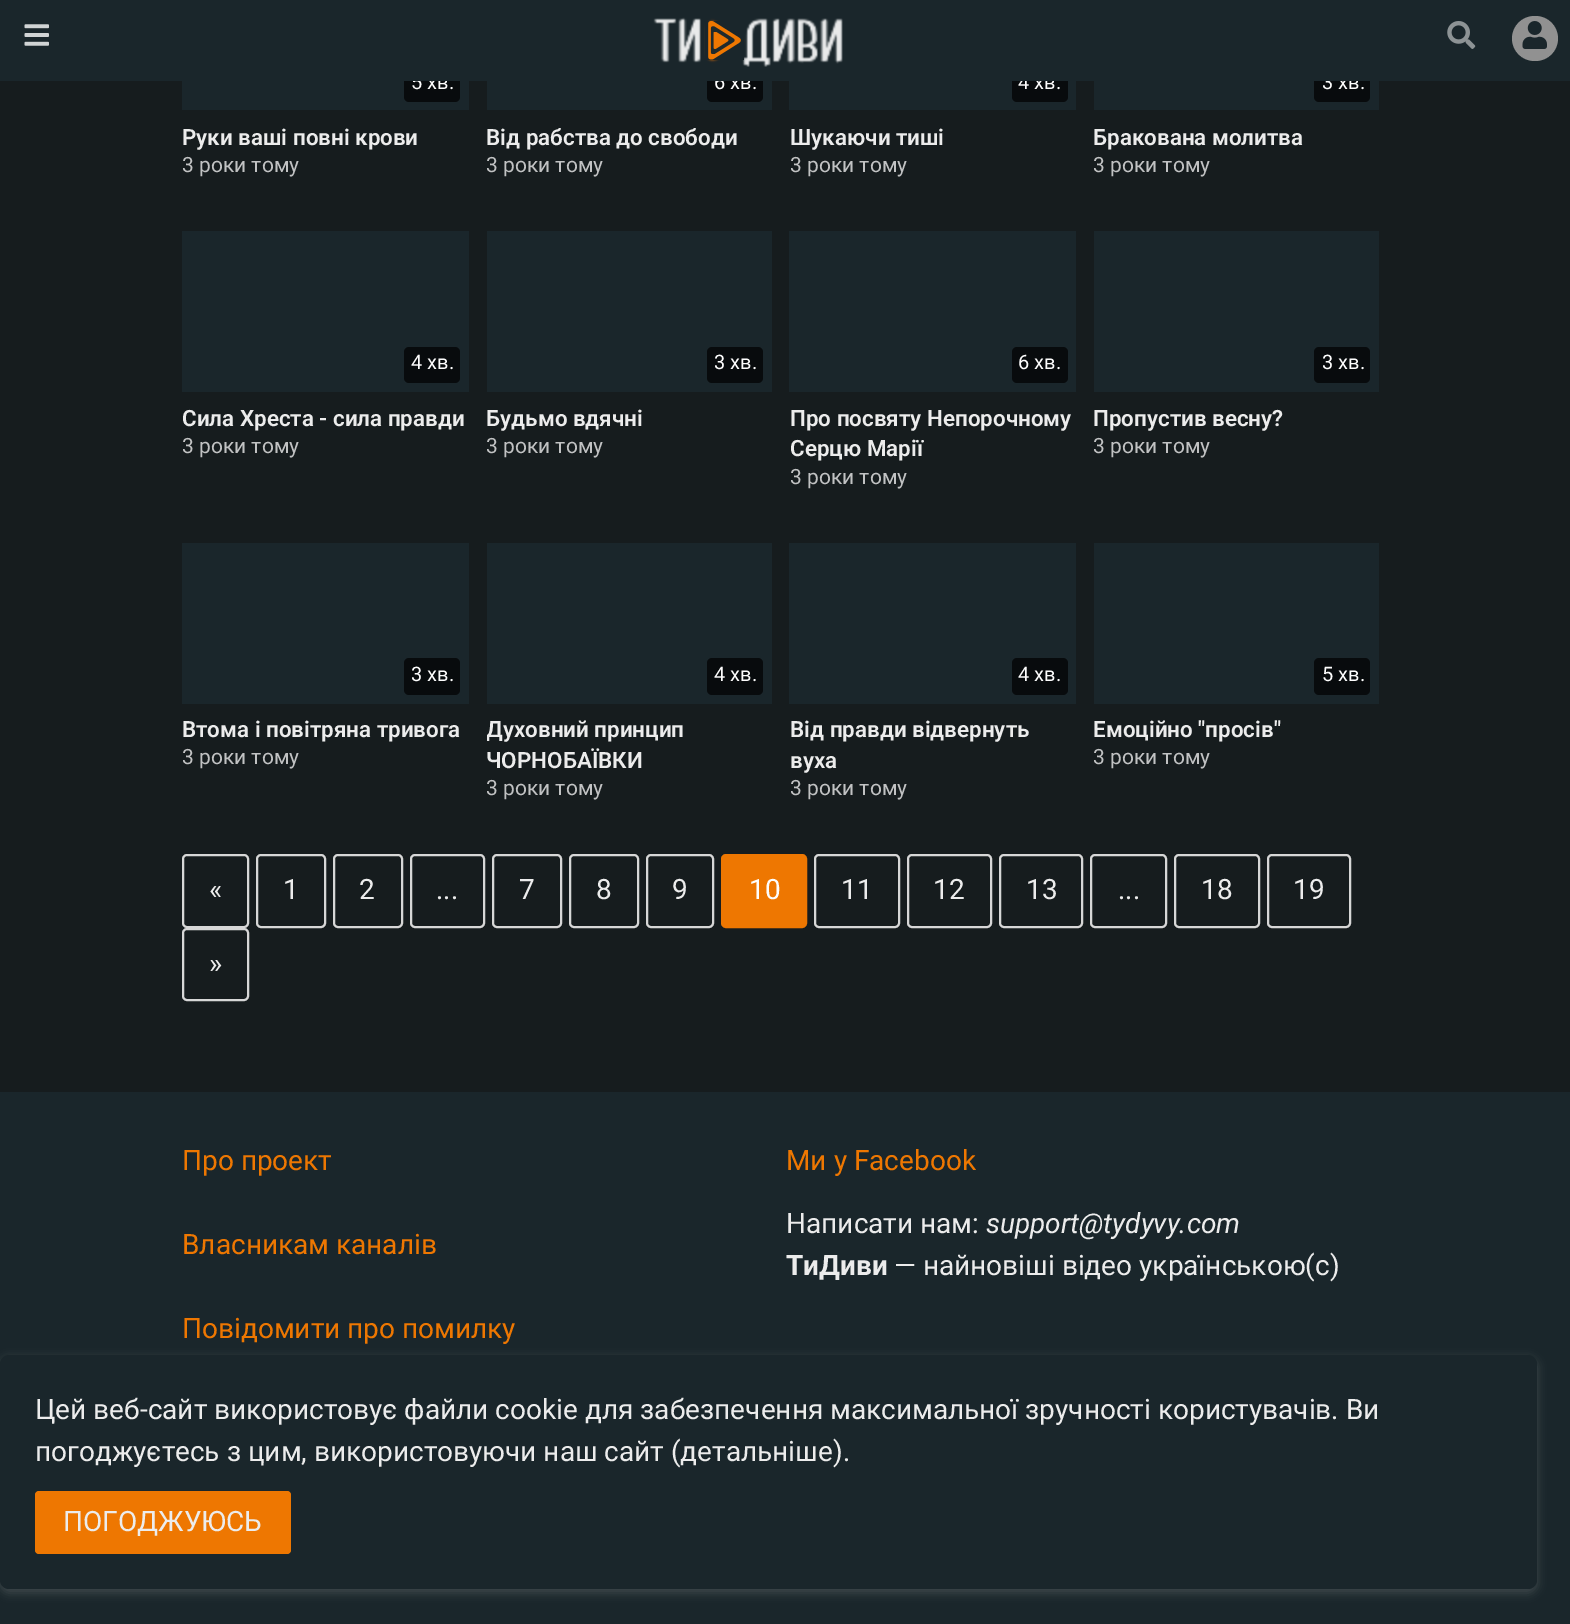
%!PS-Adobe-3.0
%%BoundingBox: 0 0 1570 1624
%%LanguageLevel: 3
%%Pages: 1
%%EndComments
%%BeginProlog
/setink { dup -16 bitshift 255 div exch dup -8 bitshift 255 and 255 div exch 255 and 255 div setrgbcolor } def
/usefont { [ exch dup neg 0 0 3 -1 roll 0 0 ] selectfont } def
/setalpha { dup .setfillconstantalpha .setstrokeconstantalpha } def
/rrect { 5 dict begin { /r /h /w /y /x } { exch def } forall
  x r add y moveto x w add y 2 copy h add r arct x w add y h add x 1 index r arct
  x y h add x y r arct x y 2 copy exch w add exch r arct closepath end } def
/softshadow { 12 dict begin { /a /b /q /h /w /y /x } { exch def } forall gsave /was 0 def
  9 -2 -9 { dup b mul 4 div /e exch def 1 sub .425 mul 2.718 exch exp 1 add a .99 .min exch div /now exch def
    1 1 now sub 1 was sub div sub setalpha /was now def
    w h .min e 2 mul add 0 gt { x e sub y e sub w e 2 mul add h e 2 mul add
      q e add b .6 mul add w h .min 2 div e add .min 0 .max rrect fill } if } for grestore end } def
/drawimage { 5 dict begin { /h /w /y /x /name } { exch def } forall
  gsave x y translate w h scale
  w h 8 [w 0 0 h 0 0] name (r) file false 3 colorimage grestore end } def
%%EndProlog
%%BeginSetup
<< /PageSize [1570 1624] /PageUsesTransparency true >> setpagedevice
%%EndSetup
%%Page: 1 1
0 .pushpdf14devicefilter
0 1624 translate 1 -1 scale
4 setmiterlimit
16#161C1E setink
0 0 1570 1624 rectfill
16#1A262B setink
182 81 287 29 rectfill
16#080B0D setink
404 67 56 35 5 rrect fill
/Roboto-Regular 20 usefont
16#FDFDFD setink
411 89 moveto (5 хв.) show
16#1A262B setink
487 81 285 29 rectfill
16#080B0D setink
707 67 56 35 5 rrect fill
16#FDFDFD setink
714 89 moveto (6 хв.) show
16#1A262B setink
789 81 287 29 rectfill
16#080B0D setink
1012 67 56 35 5 rrect fill
16#FDFDFD setink
1018 89 moveto (4 хв.) show
16#1A262B setink
1094 81 285 29 rectfill
16#080B0D setink
1314 67 56 35 5 rrect fill
16#FDFDFD setink
1322 89 moveto (3 хв.) show
16#1A262B setink
0 0 1570 81 rectfill
(img1.raw) 24 24 25 22 drawimage
(img2.raw) 653 17 190 50 drawimage
705 21 39 39 rectfill
(img3.raw) 708 21 33 39 drawimage
(img4.raw) 710 26 25 28 drawimage
(img5.raw) 713 32 16 17 drawimage
(img6.raw) 1447 21 29 28 drawimage
16#919191 setink
1512 16 46 45 22.5 rrect fill
(img7.raw) 1522 21 25 28 drawimage
/Roboto-SemiBold 22.4 usefont
16#ECECEC setink
182 145 moveto (Руки ваші повні крови) show
/Roboto-Regular 21 usefont
16#C1C2C3 setink
182 172 moveto (3 роки тому) show
/Roboto-SemiBold 22.4 usefont
16#ECECEC setink
486 145 moveto (Від рабства до свободи) show
/Roboto-Regular 21 usefont
16#C1C2C3 setink
486 172 moveto (3 роки тому) show
/Roboto-SemiBold 22.4 usefont
16#ECECEC setink
790 145 moveto (Шукаючи тиші) show
/Roboto-Regular 21 usefont
16#C1C2C3 setink
790 172 moveto (3 роки тому) show
/Roboto-SemiBold 22.4 usefont
16#ECECEC setink
1093 145 moveto (Бракована молитва) show
/Roboto-Regular 21 usefont
16#C1C2C3 setink
1093 172 moveto (3 роки тому) show
16#1A262B setink
182 231 287 161 rectfill
16#080B0D setink
404 347 56 36 5 rrect fill
/Roboto-Regular 20 usefont
16#FDFDFD setink
411 369 moveto (4 хв.) show
/Roboto-SemiBold 22.4 usefont
16#ECECEC setink
182 426 moveto (Сила Хреста - сила правди) show
/Roboto-Regular 21 usefont
16#C1C2C3 setink
182 453 moveto (3 роки тому) show
16#1A262B setink
487 231 285 161 rectfill
16#080B0D setink
707 347 56 36 5 rrect fill
/Roboto-Regular 20 usefont
16#FDFDFD setink
714 369 moveto (3 хв.) show
/Roboto-SemiBold 22.4 usefont
16#ECECEC setink
486 426 moveto (Будьмо вдячні) show
/Roboto-Regular 21 usefont
16#C1C2C3 setink
486 453 moveto (3 роки тому) show
16#1A262B setink
789 231 287 161 rectfill
16#080B0D setink
1012 347 56 36 5 rrect fill
/Roboto-Regular 20 usefont
16#FDFDFD setink
1018 369 moveto (6 хв.) show
/Roboto-SemiBold 22.4 usefont
16#ECECEC setink
790 426 moveto (Про посвяту Непорочному) show
790 456 moveto (Серцю Марії) show
/Roboto-Regular 21 usefont
16#C1C2C3 setink
790 484 moveto (3 роки тому) show
16#1A262B setink
1094 231 285 161 rectfill
16#080B0D setink
1314 347 56 36 5 rrect fill
/Roboto-Regular 20 usefont
16#FDFDFD setink
1322 369 moveto (3 хв.) show
/Roboto-SemiBold 22.4 usefont
16#ECECEC setink
1093 426 moveto (Пропустив весну?) show
/Roboto-Regular 21 usefont
16#C1C2C3 setink
1093 453 moveto (3 роки тому) show
16#1A262B setink
182 543 287 161 rectfill
16#080B0D setink
404 658 56 37 5 rrect fill
/Roboto-Regular 20 usefont
16#FDFDFD setink
411 681 moveto (3 хв.) show
/Roboto-SemiBold 22.4 usefont
16#ECECEC setink
182 737 moveto (Втома і повітряна тривога) show
/Roboto-Regular 21 usefont
16#C1C2C3 setink
182 764 moveto (3 роки тому) show
16#1A262B setink
487 543 285 161 rectfill
16#080B0D setink
707 658 56 37 5 rrect fill
/Roboto-Regular 20 usefont
16#FDFDFD setink
714 681 moveto (4 хв.) show
gsave
487 714 285 61 rectclip
/Roboto-SemiBold 22.4 usefont
16#ECECEC setink
486 737 moveto (Духовний принцип) show
grestore
/Roboto-SemiBold 22.4 usefont
16#ECECEC setink
486 768 moveto (ЧОРНОБАЇВКИ) show
/Roboto-Regular 21 usefont
16#C1C2C3 setink
486 795 moveto (3 роки тому) show
16#1A262B setink
789 543 287 161 rectfill
16#080B0D setink
1012 658 56 37 5 rrect fill
/Roboto-Regular 20 usefont
16#FDFDFD setink
1018 681 moveto (4 хв.) show
/Roboto-SemiBold 22.4 usefont
16#ECECEC setink
790 737 moveto (Від правди відвернуть) show
790 768 moveto (вуха) show
/Roboto-Regular 21 usefont
16#C1C2C3 setink
790 795 moveto (3 роки тому) show
16#1A262B setink
1094 543 285 161 rectfill
16#080B0D setink
1314 658 56 37 5 rrect fill
/Roboto-Regular 20 usefont
16#FDFDFD setink
1322 681 moveto (5 хв.) show
/Roboto-SemiBold 22.4 usefont
16#ECECEC setink
1093 737 moveto (Емоційно "просів") show
/Roboto-Regular 21 usefont
16#C1C2C3 setink
1093 764 moveto (3 роки тому) show
16#D7D7D7 setink
2 setlinewidth
183 855 65 72 4 rrect stroke
/Roboto-Regular 28 usefont
16#ECECEC setink
209 899 moveto («) show
16#D7D7D7 setink
257 855 68 72 4 rrect stroke
16#ECECEC setink
283 899 moveto (1) show
16#D7D7D7 setink
334 855 68 72 4 rrect stroke
16#ECECEC setink
359 899 moveto (2) show
16#D7D7D7 setink
493 855 68 72 4 rrect stroke
16#ECECEC setink
519 899 moveto (7) show
16#D7D7D7 setink
570 855 68 72 4 rrect stroke
16#ECECEC setink
596 899 moveto (8) show
16#D7D7D7 setink
647 855 66 72 4 rrect stroke
16#ECECEC setink
672 899 moveto (9) show
16#EE7701 setink
722 855 84 72 4 rrect gsave fill grestore
stroke
16#FDFDFD setink
749 899 moveto (10) show
16#D7D7D7 setink
815 855 84 72 4 rrect stroke
16#ECECEC setink
841 899 moveto (11) show
16#D7D7D7 setink
908 855 83 72 4 rrect stroke
16#ECECEC setink
933 899 moveto (12) show
16#D7D7D7 setink
1000 855 82 72 4 rrect stroke
16#ECECEC setink
1026 899 moveto (13) show
16#D7D7D7 setink
1175 855 84 72 4 rrect stroke
16#ECECEC setink
1201 899 moveto (18) show
16#D7D7D7 setink
1268 855 82 72 4 rrect stroke
16#ECECEC setink
1293 899 moveto (19) show
16#D7D7D7 setink
411 855 73 72 4 rrect stroke
16#ECECEC setink
436 899 moveto (...) show
16#D7D7D7 setink
1091 855 75 72 4 rrect stroke
16#ECECEC setink
1118 899 moveto (...) show
16#D7D7D7 setink
183 929 65 71 4 rrect stroke
16#ECECEC setink
209 973 moveto (») show
16#1A262B setink
0 1092 1570 532 rectfill
16#EE7701 setink
[
    [(Про проект) 182 1170]
    [(Власникам каналів) 182 1254]
    [(Повідомити про помилку) 182 1338]
    [(Ми у Facebook) 786 1170]
] { aload pop moveto show } forall
16#ECECEC setink
786 1233 moveto (Написати нам:) show
/Roboto-Italic 28 usefont
986 1233 moveto (support@tydyvy.com) show
/Roboto-Bold 28 usefont
786 1275 moveto (ТиДиви) show
/Roboto-Regular 28 usefont
894 1275 moveto (— найновіші відео українською\(c\)) show
16#FFFFFF setink
0 1358 1537 235 9 4.5 0.15 softshadow
16#1A262B setink
0 1355 1537 234 9 rrect fill
16#ECECEC setink
35 1419 moveto (Цей веб-сайт використовує файли cookie для забезпечення максимальної зручності користувачів. Ви) show
35 1461 moveto (погоджуєтесь з цим, використовуючи наш сайт \(детальніше\).) show
16#EE7701 setink
35 1491 256 63 4 rrect fill
16#ECECEC setink
63 1531 moveto (ПОГОДЖУЮСЬ) show
.poppdf14devicefilter showpage
%%EOF
